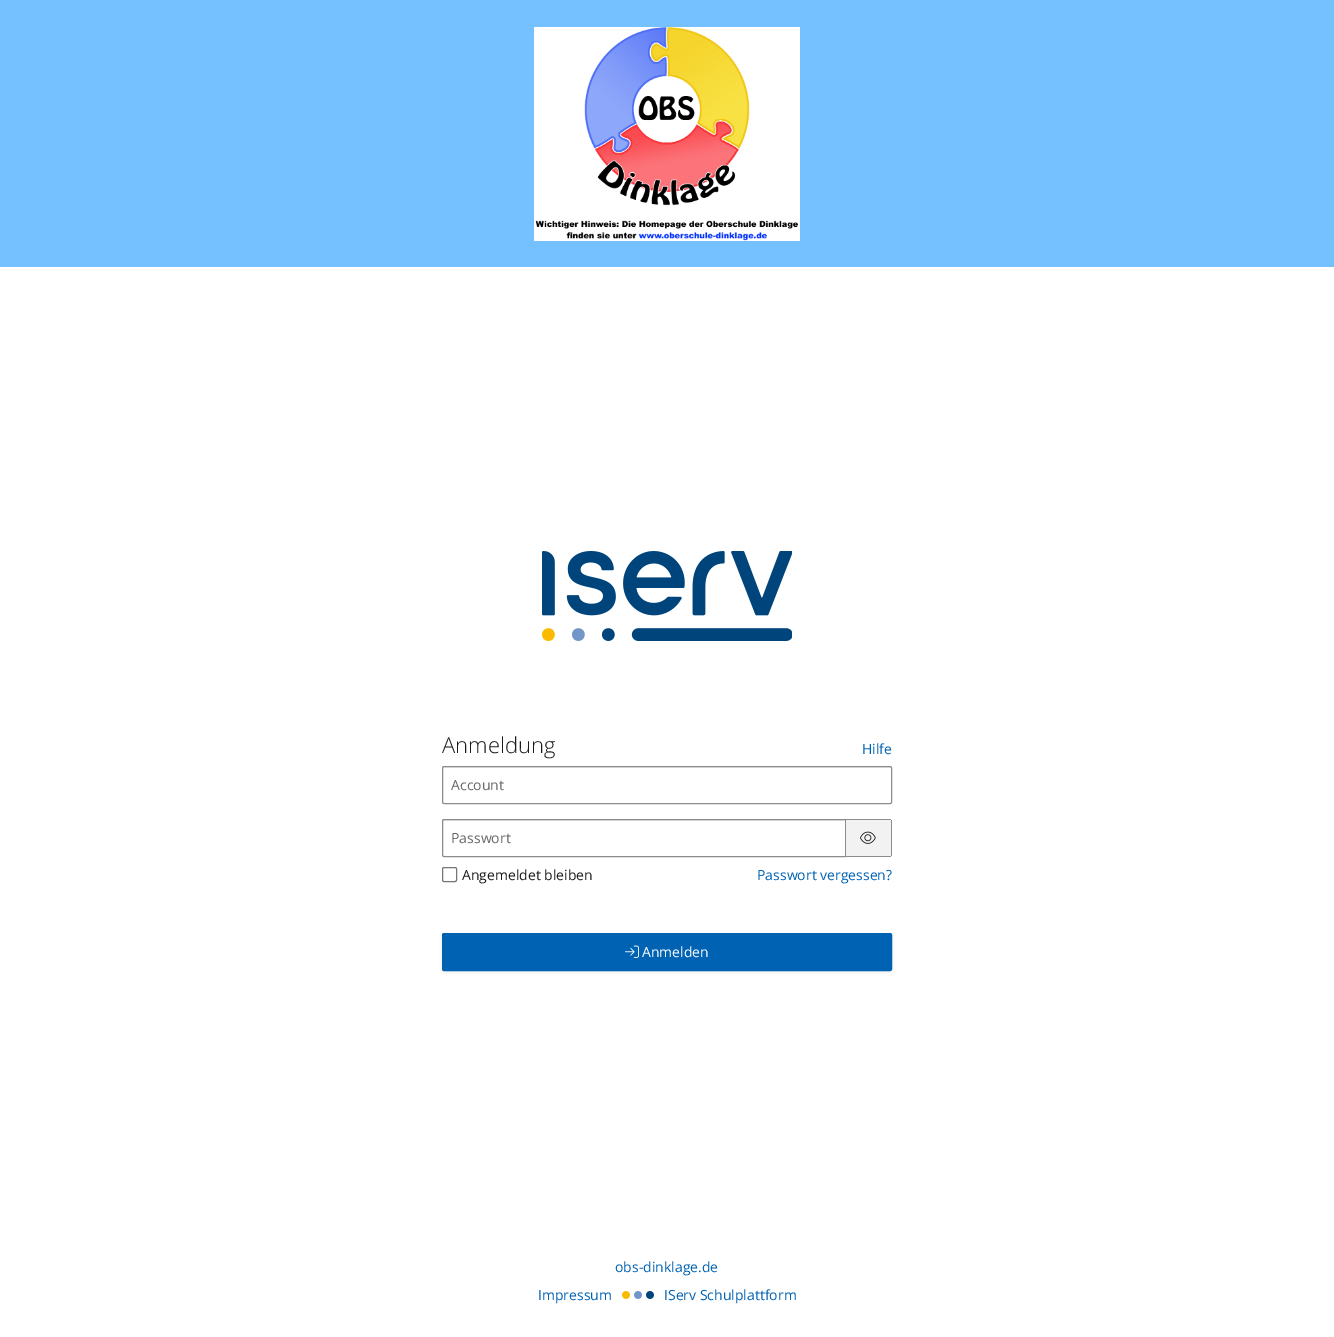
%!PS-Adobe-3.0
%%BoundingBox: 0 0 1334 1337
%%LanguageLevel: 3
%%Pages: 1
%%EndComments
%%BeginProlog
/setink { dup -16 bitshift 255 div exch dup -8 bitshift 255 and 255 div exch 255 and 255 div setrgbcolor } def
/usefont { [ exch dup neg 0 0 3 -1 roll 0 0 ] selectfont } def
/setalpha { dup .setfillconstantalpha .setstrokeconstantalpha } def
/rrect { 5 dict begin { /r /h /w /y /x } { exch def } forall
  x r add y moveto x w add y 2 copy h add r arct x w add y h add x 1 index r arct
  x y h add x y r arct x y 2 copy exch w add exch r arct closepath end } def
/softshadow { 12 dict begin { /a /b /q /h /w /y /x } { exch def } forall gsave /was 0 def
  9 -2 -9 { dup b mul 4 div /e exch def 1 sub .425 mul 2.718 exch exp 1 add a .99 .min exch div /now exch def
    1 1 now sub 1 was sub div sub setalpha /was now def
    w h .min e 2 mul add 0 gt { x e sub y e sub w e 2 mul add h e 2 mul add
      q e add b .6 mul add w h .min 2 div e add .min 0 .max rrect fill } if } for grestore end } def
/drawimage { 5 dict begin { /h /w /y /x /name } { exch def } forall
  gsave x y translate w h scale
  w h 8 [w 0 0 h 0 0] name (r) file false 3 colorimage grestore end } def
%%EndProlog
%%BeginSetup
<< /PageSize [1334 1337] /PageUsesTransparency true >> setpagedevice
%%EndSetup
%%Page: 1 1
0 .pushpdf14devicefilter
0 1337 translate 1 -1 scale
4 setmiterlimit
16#FFFFFF setink
0 0 1334 1337 rectfill
16#75C1FF setink
0 0 1334 267 rectfill
(img1.raw) 534 27 266 214 drawimage
(img2.raw) 542 551 250 90 drawimage
/OpenSans-Light 22 usefont
16#1A1A1A setink
442 753 moveto (Anmeldung) show
/OpenSans-Regular 14 usefont
16#0062B3 setink
862 754 moveto (Hilfe) show
16#ECECEC setink
444 768 moveto 890 768 lineto 891 768 891 768 891 769 curveto 891 768 891 767 890 767 curveto 444 767 lineto 443 768 lineto 443 769 lineto 443 768 443 768 444 768 curveto closepath fill
16#8C8C8C setink
442.5 766.5 449 37 1.5 rrect stroke
16#666666 setink
451 790 moveto (Account) show
16#ECECEC setink
444 821 moveto 845 821 lineto 845 820 lineto 444 820 lineto 443 820 443 821 443 822 curveto closepath fill
16#8C8C8C setink
444 819.5 moveto 845.5 819.5 lineto 845.5 856.5 lineto 444 856.5 lineto 443 856.5 442.5 856 442.5 855 curveto 442.5 821 lineto 442.5 820 443 819.5 444 819.5 curveto closepath stroke
16#666666 setink
451 843 moveto (Passwort) show
16#F2F2F2 setink
846 819 moveto 890 819 lineto 891 819 892 820 892 821 curveto 892 855 lineto 892 856 891 857 890 857 curveto 846 857 lineto closepath fill
[
    [846 819 45 1 16#8C8C8C]
    [891 820 1 36 16#8C8C8C]
    [846 856 45 1 16#8C8C8C]
] { aload pop setink rectfill } forall
(img3.raw) 860 831 16 13 drawimage
16#767676 setink
442.5 867.5 14 14 1.5 rrect stroke
16#1A1A1A setink
462 880 moveto (Angemeldet bleiben) show
16#0062B3 setink
757 880 moveto (Passwort vergessen?) show
16#000000 setink
442 934 450 38 2 1.5 0.08 softshadow
16#0062B3 setink
442.5 933.5 449 37 1.5 rrect gsave fill grestore
stroke
(img4.raw) 625 945 14 13 drawimage
16#FFFFFF setink
642 957 moveto (Anmelden) show
16#0062B3 setink
615 1272 moveto (obs-dinklage.de) show
538 1300 moveto (Impressum) show
(img5.raw) 622 1291 8 8 drawimage
(img6.raw) 634 1291 8 8 drawimage
(img7.raw) 646 1291 8 8 drawimage
664 1300 moveto (IServ Schulplattform) show
.poppdf14devicefilter showpage
%%EOF
